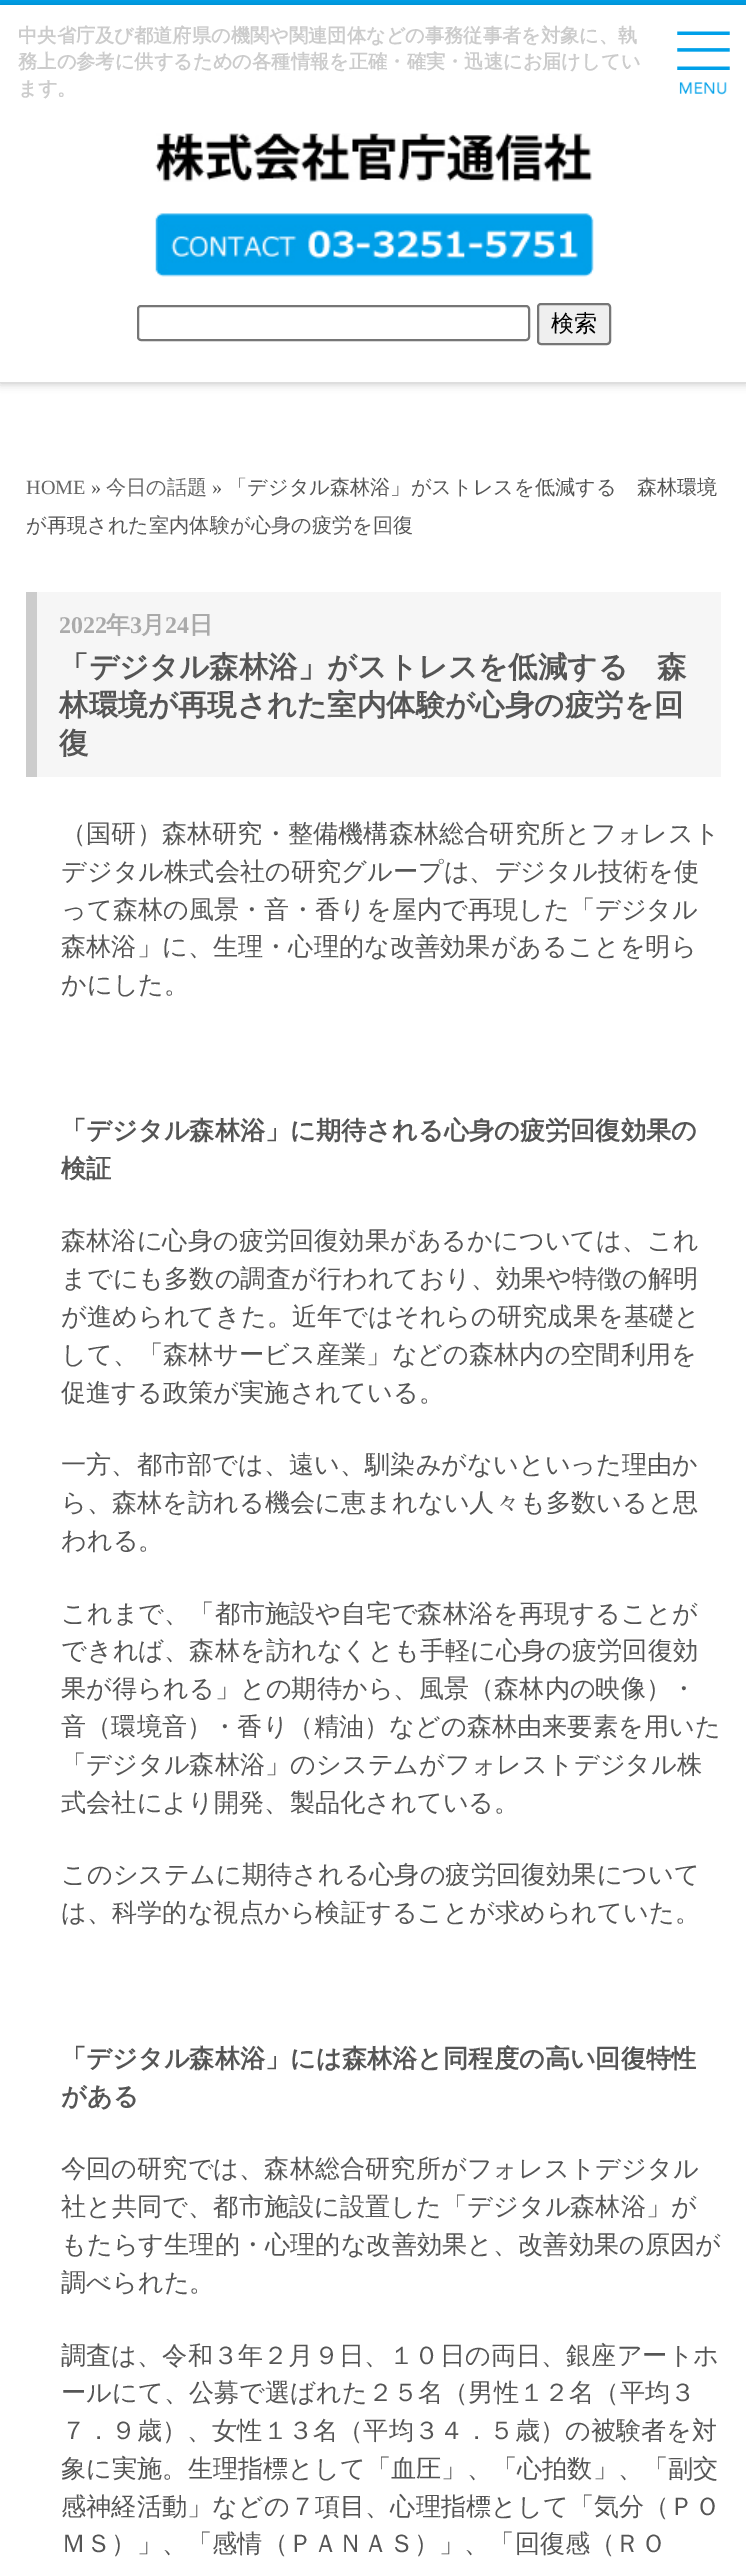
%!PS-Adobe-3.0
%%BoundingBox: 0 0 746 2573
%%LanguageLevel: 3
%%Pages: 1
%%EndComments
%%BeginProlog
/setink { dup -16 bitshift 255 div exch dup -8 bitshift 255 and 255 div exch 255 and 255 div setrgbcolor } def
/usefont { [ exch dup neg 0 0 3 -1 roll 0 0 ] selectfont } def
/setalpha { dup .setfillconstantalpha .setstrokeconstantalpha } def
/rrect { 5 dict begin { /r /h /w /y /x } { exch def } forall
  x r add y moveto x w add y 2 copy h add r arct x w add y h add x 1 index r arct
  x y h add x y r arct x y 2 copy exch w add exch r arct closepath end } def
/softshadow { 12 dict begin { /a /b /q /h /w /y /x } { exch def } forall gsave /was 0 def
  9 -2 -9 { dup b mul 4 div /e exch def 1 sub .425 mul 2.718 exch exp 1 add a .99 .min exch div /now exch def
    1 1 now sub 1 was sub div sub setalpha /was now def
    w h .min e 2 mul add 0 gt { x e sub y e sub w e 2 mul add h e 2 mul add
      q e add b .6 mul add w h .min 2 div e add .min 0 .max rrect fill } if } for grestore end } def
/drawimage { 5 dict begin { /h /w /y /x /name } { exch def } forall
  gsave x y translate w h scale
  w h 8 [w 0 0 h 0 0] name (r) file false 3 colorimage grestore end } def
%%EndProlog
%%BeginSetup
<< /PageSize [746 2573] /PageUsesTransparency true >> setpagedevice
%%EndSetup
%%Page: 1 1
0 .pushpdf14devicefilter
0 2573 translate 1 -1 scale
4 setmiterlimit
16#FFFFFF setink
0 0 746 2573 rectfill
16#00A0E9 setink
0 0 746 5 rectfill
16#000000 setink
0 7 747 376 0 4.5 0.25 softshadow
16#FFFFFF setink
0 5 746 377 rectfill
/WenQuanYiZenHei-Bold 19.25 usefont
16#CCCCCC setink
[
    [(中央省庁及び都道府県の機関や関連団体などの事務従事者を対象に、執) 18 42]
    [(務上の参考に供するための各種情報を正確・確実・迅速にお届けしてい) 18 68]
    [(ます。) 18 95]
] { aload pop moveto show } forall
(img1.raw) 677 31 53 64 drawimage
(img2.raw) 155 133 437 49 drawimage
(img3.raw) 155 213 439 64 drawimage
16#767676 setink
2 setlinewidth
138 306 391 34 3 rrect stroke
16#EFEFEF setink
538 304 72 40 3 rrect gsave fill grestore
16#767676 setink
stroke
/WenQuanYiZenHei-Medium 23 usefont
16#000000 setink
551 331 moveto (検索) show
/LiberationSerif-Regular 20.2 usefont
16#666666 setink
26 494 moveto (HOME) show
16#555555 setink
91 494 moveto (») show
/WenQuanYiZenHei-Medium 20.2 usefont
16#666666 setink
106 494 moveto (今日の話題) show
/LiberationSerif-Regular 20.2 usefont
16#555555 setink
212 494 moveto (») show
/WenQuanYiZenHei-Medium 20.2 usefont
227 494 moveto (「デジタル森林浴」がストレスを低減する　森林環境) show
26 532 moveto (が再現された室内体験が心身の疲労を回復) show
16#F6F6F6 setink
37 592 684 185 rectfill
16#CCCCCC setink
26 592 11 185 rectfill
/LiberationSerif-Bold 24 usefont
16#AAAAAA setink
59 633 moveto (2022) show
/WenQuanYiZenHei-Bold 24 usefont
106 633 moveto (年) show
/LiberationSerif-Bold 24 usefont
130 633 moveto (3) show
/WenQuanYiZenHei-Bold 24 usefont
141 633 moveto (月) show
/LiberationSerif-Bold 24 usefont
165 633 moveto (24) show
/WenQuanYiZenHei-Bold 24 usefont
189 633 moveto (日) show
/WenQuanYiZenHei-Bold 29.5 usefont
16#555555 setink
[
    [(「デジタル森林浴」がストレスを低減する　森) 59 677]
    [(林環境が再現された室内体験が心身の疲労を回) 59 715]
    [(復) 59 753]
] { aload pop moveto show } forall
/WenQuanYiZenHei-Medium 25.2 usefont
[
    [(（国研）森林研究・整備機構森林総合研究所とフォレスト) 61 842]
    [(デジタル株式会社の研究グループは、デジタル技術を使) 61 880]
    [(って森林の風景・音・香りを屋内で再現した「デジタル) 61 918]
    [(森林浴」に、生理・心理的な改善効果があることを明ら) 61 955]
    [(かにした。) 61 993]
] { aload pop moveto show } forall
/WenQuanYiZenHei-Bold 25.2 usefont
61 1139 moveto (「デジタル森林浴」に期待される心身の疲労回復効果の) show
61 1177 moveto (検証) show
/WenQuanYiZenHei-Medium 25.2 usefont
[
    [(森林浴に心身の疲労回復効果があるかについては、これ) 61 1249]
    [(までにも多数の調査が行われており、効果や特徴の解明) 61 1287]
    [(が進められてきた。近年ではそれらの研究成果を基礎と) 61 1325]
    [(して、「森林サービス産業」などの森林内の空間利用を) 61 1363]
    [(促進する政策が実施されている。) 61 1401]
    [(一方、都市部では、遠い、馴染みがないといった理由か) 61 1473]
    [(ら、森林を訪れる機会に恵まれない人々も多数いると思) 61 1511]
    [(われる。) 61 1549]
    [(これまで、「都市施設や自宅で森林浴を再現することが) 61 1622]
    [(できれば、森林を訪れなくとも手軽に心身の疲労回復効) 61 1659]
    [(果が得られる」との期待から、風景（森林内の映像）・) 61 1697]
    [(音（環境音）・香り（精油）などの森林由来要素を用いた) 61 1735]
    [(「デジタル森林浴」のシステムがフォレストデジタル株) 61 1773]
    [(式会社により開発、製品化されている。) 61 1811]
    [(このシステムに期待される心身の疲労回復効果について) 61 1883]
    [(は、科学的な視点から検証することが求められていた。) 61 1921]
] { aload pop moveto show } forall
/WenQuanYiZenHei-Bold 25.2 usefont
61 2067 moveto (「デジタル森林浴」には森林浴と同程度の高い回復特性) show
61 2105 moveto (がある) show
/WenQuanYiZenHei-Medium 25.2 usefont
[
    [(今回の研究では、森林総合研究所がフォレストデジタル) 61 2177]
    [(社と共同で、都市施設に設置した「デジタル森林浴」が) 61 2215]
    [(もたらす生理的・心理的な改善効果と、改善効果の原因が) 61 2253]
    [(調べられた。) 61 2291]
    [(調査は、令和３年２月９日、１０日の両日、銀座アートホ) 61 2364]
    [(ールにて、公募で選ばれた２５名（男性１２名（平均３) 61 2401]
    [(７．９歳）、女性１３名（平均３４．５歳）の被験者を対) 61 2439]
    [(象に実施。生理指標として「血圧」、「心拍数」、「副交) 61 2477]
    [(感神経活動」などの７項目、心理指標として「気分（ＰＯ) 61 2515]
    [(ＭＳ）」、「感情（ＰＡＮＡＳ）」、「回復感（ＲＯ) 61 2552]
] { aload pop moveto show } forall
.poppdf14devicefilter showpage
%%EOF
